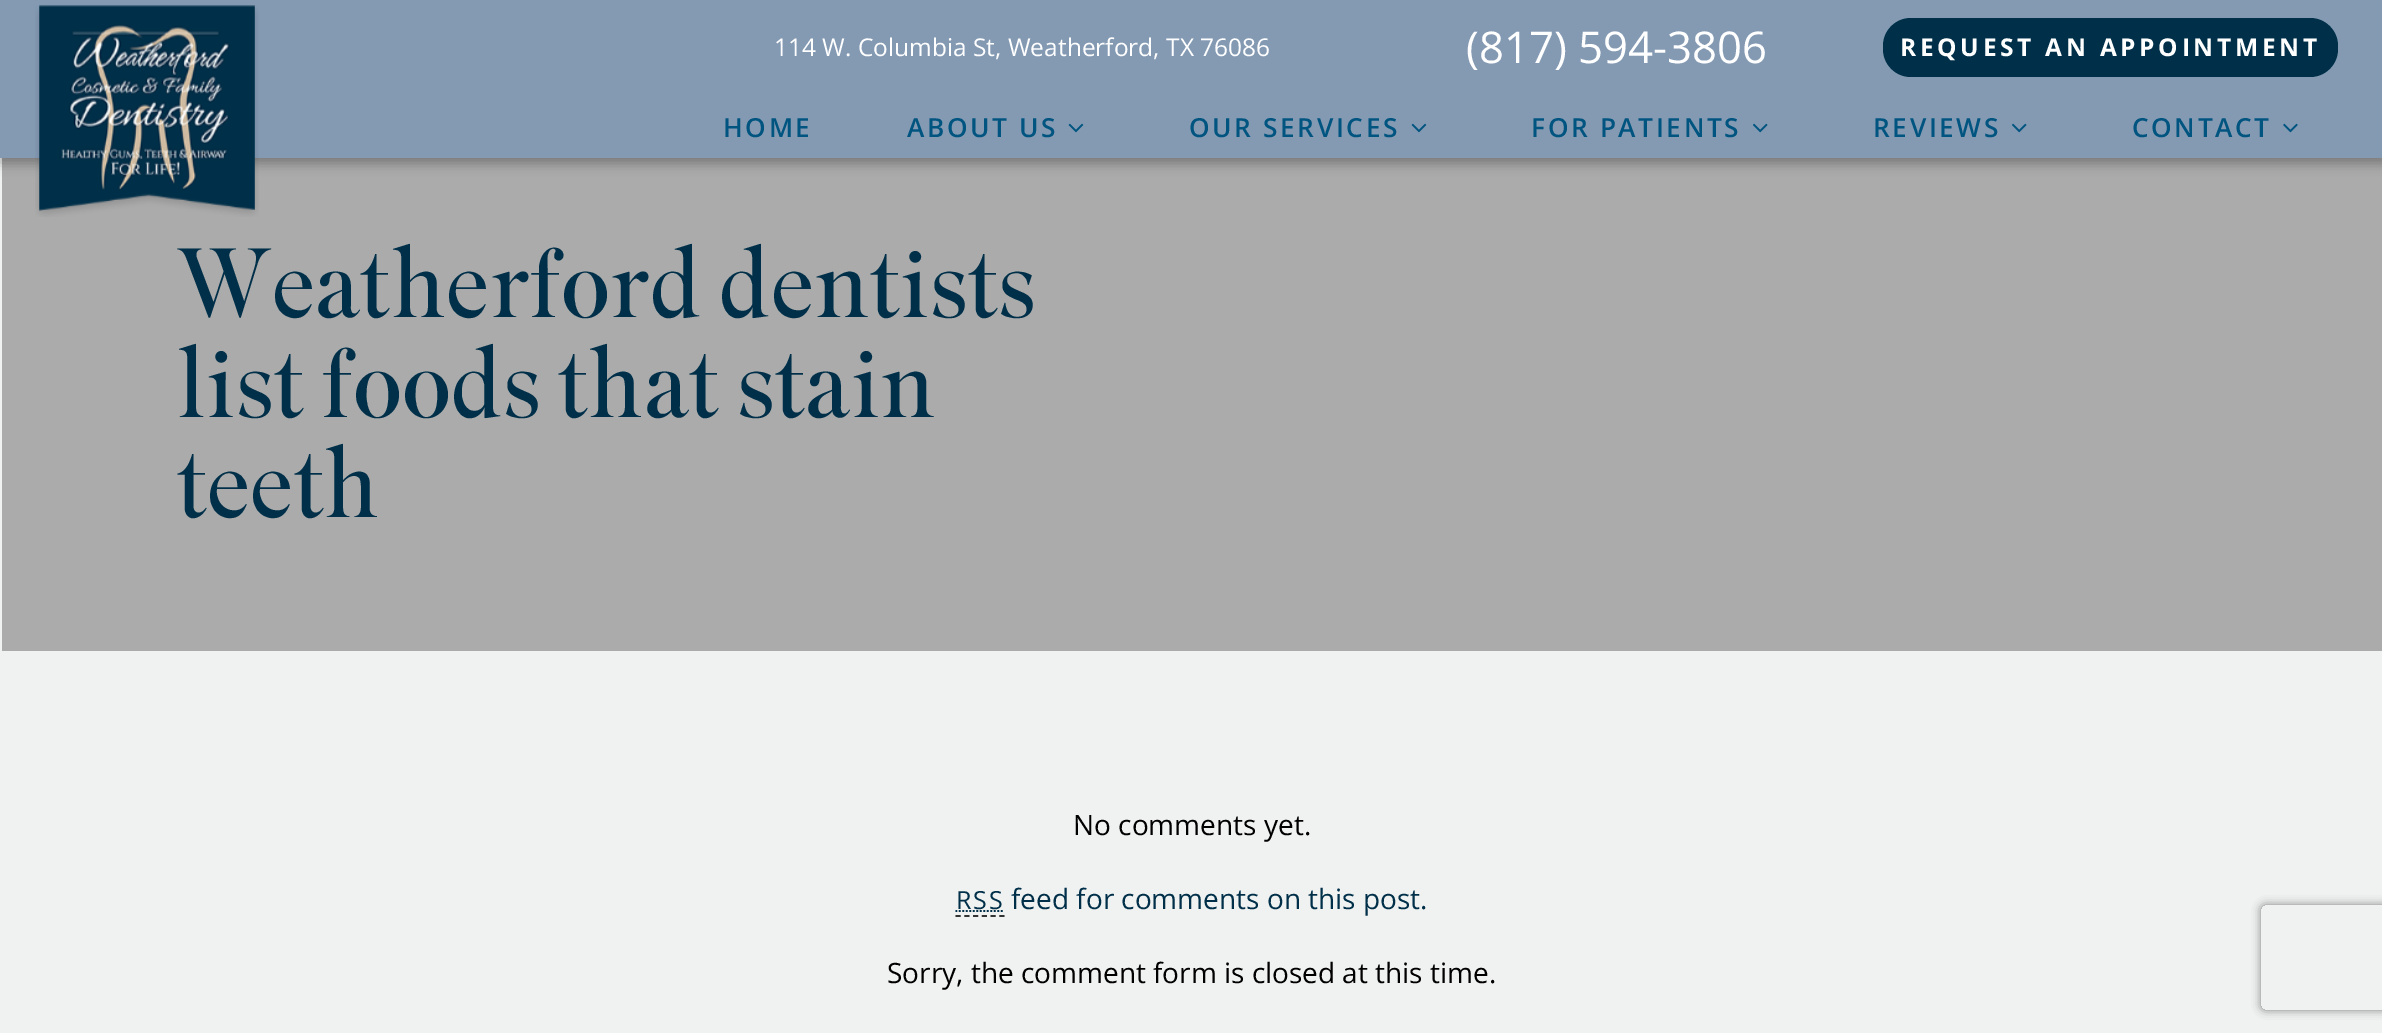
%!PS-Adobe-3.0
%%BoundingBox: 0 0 2382 1033
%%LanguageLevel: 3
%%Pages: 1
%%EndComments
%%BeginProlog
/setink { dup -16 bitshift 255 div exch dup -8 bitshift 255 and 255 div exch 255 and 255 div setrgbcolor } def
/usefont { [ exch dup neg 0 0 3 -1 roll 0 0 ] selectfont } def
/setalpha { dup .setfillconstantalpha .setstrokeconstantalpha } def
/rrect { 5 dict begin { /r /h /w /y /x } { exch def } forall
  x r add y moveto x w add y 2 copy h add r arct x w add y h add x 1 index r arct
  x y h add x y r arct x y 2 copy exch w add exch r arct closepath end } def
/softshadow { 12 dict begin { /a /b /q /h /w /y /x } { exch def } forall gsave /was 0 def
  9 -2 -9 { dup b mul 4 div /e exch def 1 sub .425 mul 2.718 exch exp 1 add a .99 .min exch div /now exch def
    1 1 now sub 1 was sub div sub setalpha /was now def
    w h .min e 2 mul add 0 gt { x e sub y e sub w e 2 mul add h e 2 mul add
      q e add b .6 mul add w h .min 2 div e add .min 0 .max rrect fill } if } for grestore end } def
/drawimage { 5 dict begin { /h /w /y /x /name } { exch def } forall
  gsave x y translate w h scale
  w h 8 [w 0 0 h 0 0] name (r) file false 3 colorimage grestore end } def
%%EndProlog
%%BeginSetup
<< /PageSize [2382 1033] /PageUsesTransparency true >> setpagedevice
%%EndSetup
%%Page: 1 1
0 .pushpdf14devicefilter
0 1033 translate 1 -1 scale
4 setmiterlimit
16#F0F2F1 setink
0 0 2382 1033 rectfill
16#ABABAB setink
2 158 2380 493 rectfill
16#181718 setink
0 5 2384 158 0 6 0.35 softshadow
16#849AB3 setink
0 0 2382 158 rectfill
(img1.raw) 35 5 224 212 drawimage
/OpenSans-Regular 24.5 usefont
16#FFFFFF setink
774 56 moveto (114 W. Columbia St, Weatherford, TX 76086) show
/OpenSans-Regular 43.75 usefont
1466 63 moveto (\(817\) 594-3806) show
16#003049 setink
1883 18 455 59 28 rrect fill
/OpenSans-Bold 24.5 usefont
16#FFFFFF setink
1900 56 moveto 3.7 0 (REQUEST AN APPOINTMENT) ashow
/OpenSans-SemiBold 26.25 usefont
16#005480 setink
723 137 moveto 2.6 0 (HOME) ashow
907 137 moveto 2.6 0 (ABOUT US) ashow
(img2.raw) 1068 123 16 10 drawimage
1189 137 moveto 2.6 0 (OUR SERVICES) ashow
(img2.raw) 1411 123 16 10 drawimage
1531 137 moveto 2.6 0 (FOR PATIENTS) ashow
(img3.raw) 1753 123 15 10 drawimage
1873 137 moveto 2.6 0 (REVIEWS) ashow
(img3.raw) 2012 123 15 10 drawimage
2132 137 moveto 2.6 0 (CONTACT) ashow
(img4.raw) 2283 123 15 10 drawimage
/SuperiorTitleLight-Light 98 usefont
16#003049 setink
[
    [(Weatherford dentists) 177 317]
    [(list foods that stain) 177 417]
    [(teeth) 177 517]
] { aload pop moveto show } forall
/OpenSans-Regular 28 usefont
16#000000 setink
1073 835 moveto (No comments yet.) show
/OpenSans-Regular 25 usefont
16#003049 setink
956 909 moveto 2 0 (RSS) ashow
16#333333 setink
1.8 setlinewidth
[5.25 3.5] 0 setdash
955.5 916 moveto 1004.5 916 lineto stroke
16#003049 setink
[1.75 1.75] 0 setdash
955.5 911 moveto 1004 911 lineto stroke
/OpenSans-Regular 28 usefont
1011 909 moveto (feed for comments on this post.) show
16#000000 setink
887 983 moveto (Sorry, the comment form is closed at this time.) show
gsave
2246 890 moveto 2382 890 lineto 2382 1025 lineto 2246 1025 lineto closepath 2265 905 moveto 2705 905 lineto 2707 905 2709 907 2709 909 curveto 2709 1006 lineto 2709 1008 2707 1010 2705 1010 curveto 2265 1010 lineto 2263 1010 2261 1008 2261 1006 curveto 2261 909 lineto 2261 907 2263 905 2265 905 curveto closepath eoclip newpath
16#808080 setink
2261 905 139 105 4 4.5 1 softshadow
grestore
.poppdf14devicefilter showpage
%%EOF
